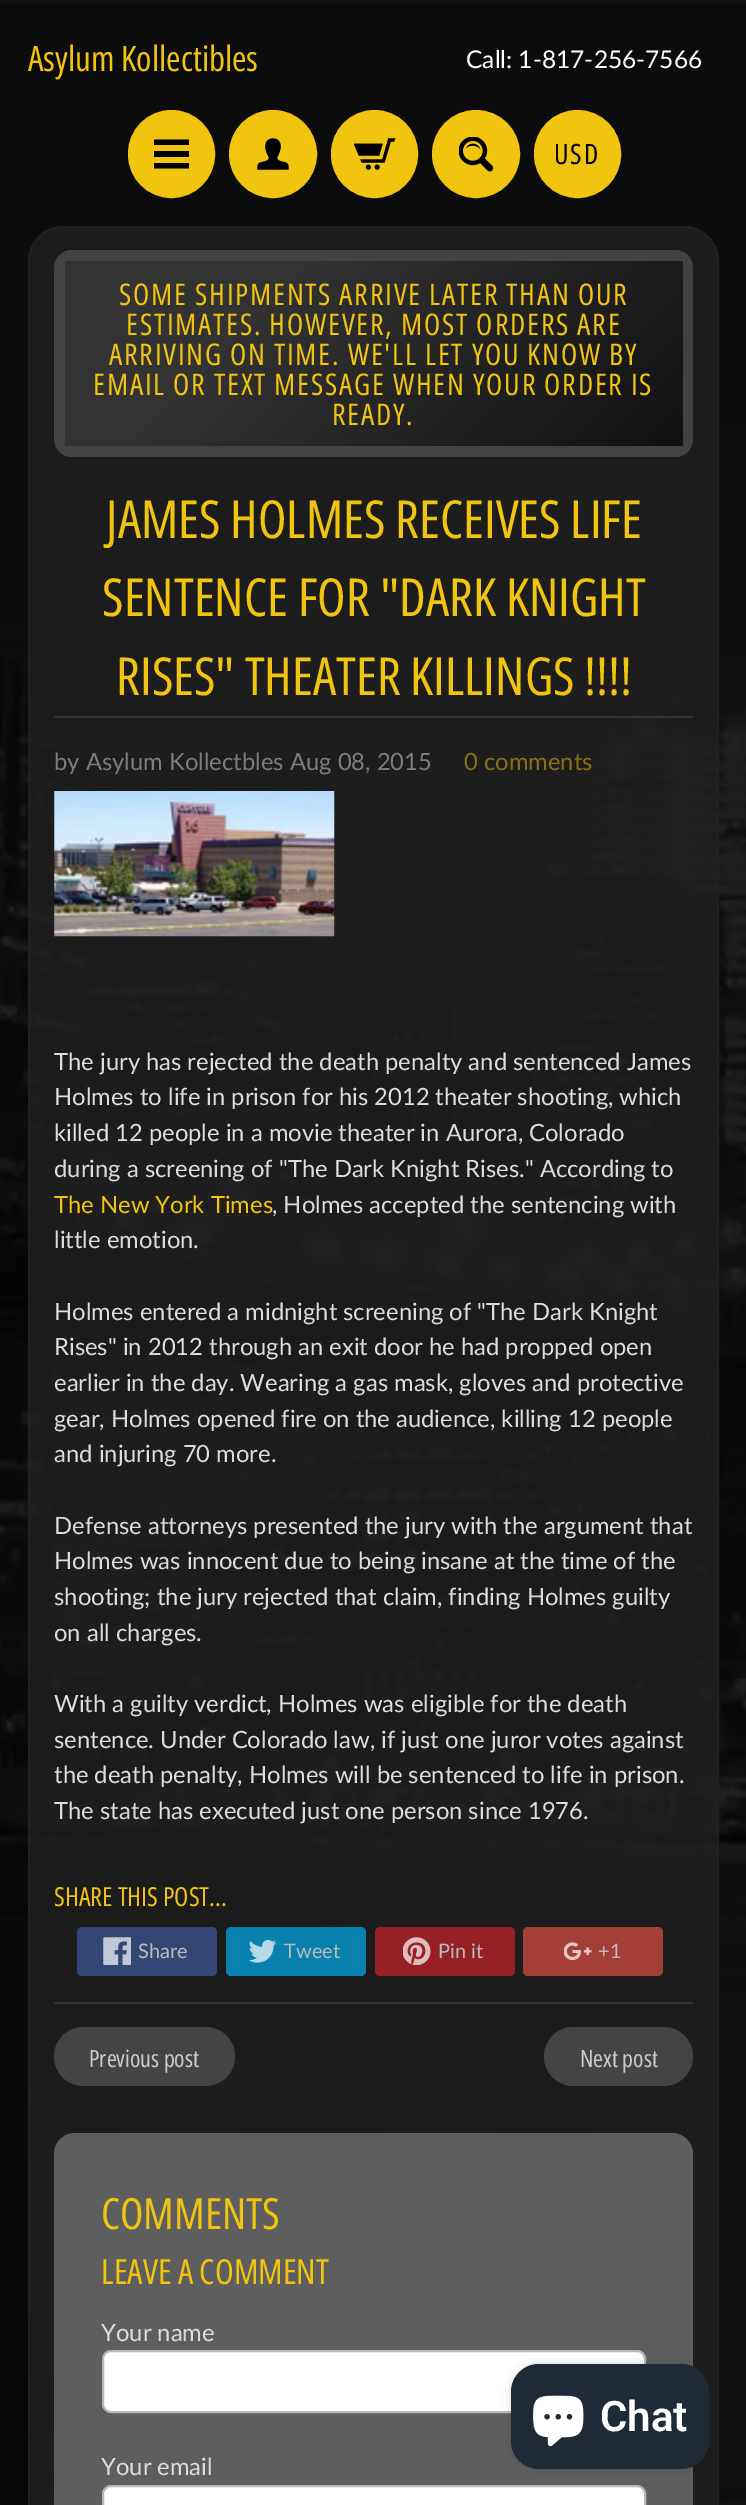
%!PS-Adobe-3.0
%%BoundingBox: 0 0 746 2505
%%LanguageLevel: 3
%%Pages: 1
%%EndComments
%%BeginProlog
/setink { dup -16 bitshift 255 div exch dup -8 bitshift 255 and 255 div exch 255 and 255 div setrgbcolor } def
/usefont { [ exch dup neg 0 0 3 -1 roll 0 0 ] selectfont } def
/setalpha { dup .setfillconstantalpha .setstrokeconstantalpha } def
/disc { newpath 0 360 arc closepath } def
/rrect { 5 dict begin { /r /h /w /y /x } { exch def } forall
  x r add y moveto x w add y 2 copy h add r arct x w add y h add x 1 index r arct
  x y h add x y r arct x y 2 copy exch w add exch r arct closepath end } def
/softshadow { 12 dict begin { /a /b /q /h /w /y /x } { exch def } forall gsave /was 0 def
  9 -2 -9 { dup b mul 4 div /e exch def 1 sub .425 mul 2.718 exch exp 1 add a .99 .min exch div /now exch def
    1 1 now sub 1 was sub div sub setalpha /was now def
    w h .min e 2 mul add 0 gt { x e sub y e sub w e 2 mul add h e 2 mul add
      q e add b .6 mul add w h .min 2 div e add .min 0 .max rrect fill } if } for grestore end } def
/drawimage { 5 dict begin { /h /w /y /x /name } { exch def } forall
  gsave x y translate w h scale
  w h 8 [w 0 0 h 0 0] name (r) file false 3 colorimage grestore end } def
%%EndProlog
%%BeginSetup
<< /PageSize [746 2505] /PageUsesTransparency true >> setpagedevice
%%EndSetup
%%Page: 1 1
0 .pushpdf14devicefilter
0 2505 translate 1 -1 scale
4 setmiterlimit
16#FFFFFF setink
0 0 746 2505 rectfill
(img1.raw) 0 0 746 2505 drawimage
/OpenSansCondensed-Regular 35 usefont
16#F1C40F setink
28 71 moveto (Asylum Kollectibles) show
/Lato-Regular 24.5 usefont
16#FFFFFF setink
466 68 moveto (Call: 1-817-256-7566) show
16#F1C40F setink
130.5 112.5 82 83 41 rrect gsave fill grestore
5 setlinewidth
stroke
16#000000 setink
189 145 moveto 154 145 lineto 154 139.5 lineto 189 139.5 lineto closepath 189 151 moveto 154 151 lineto 154 157 lineto 189 157 lineto closepath 189 163 moveto 154 163 lineto 154 168.5 lineto 189 168.5 lineto closepath fill
16#F1C40F setink
273 154 41.5 disc gsave fill grestore
stroke
(img2.raw) 257 138 32 32 drawimage
333.5 112.5 82 83 41 rrect gsave fill grestore
stroke
(img3.raw) 354 138 42 32 drawimage
476 154 41.5 disc gsave fill grestore
stroke
(img4.raw) 459 137 35 35 drawimage
536.5 112.5 82 83 41 rrect gsave fill grestore
stroke
/OpenSansCondensed-Regular 28 usefont
16#000000 setink
554 164 moveto 1.75 0 (USD) ashow
0.75 setalpha
16#222222 setink
28 226 691 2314 35 rrect fill
0.7 setalpha
2 setlinewidth
29 227 689 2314 34 rrect stroke
1 setalpha
16#434343 setink
54 250 639 207 18 rrect fill
gsave 65 261 moveto 683 261 lineto 683 446 lineto 65 446 lineto closepath clip newpath
<< /ShadingType 2 /ColorSpace /DeviceRGB /Coords [173 153 574 554] /Extend [true true] /Function << /FunctionType 3 /Domain [0 1] /Functions [<< /FunctionType 2 /Domain [0 1] /C0 [0.2 0.2 0.2] /C1 [0.2 0.2 0.2] /N 1 >> << /FunctionType 2 /Domain [0 1] /C0 [0.2 0.2 0.2] /C1 [0.067 0.067 0.067] /N 1 >>] /Bounds [0.3] /Encode [0 1 0 1] >> >> shfill grestore
/OpenSansCondensed-Regular 29.9 usefont
16#F1C40F setink
119 305 moveto 1.75 0 (SOME SHIPMENTS ARRIVE LATER THAN OUR) ashow
126 335 moveto 1.75 0 (ESTIMATES. HOWEVER, MOST ORDERS ARE) ashow
109 365 moveto 1.75 0 (ARRIVING ON TIME. WE'LL LET YOU KNOW BY) ashow
93 395 moveto 1.75 0 (EMAIL OR TEXT MESSAGE WHEN YOUR ORDER IS) ashow
332 425 moveto 1.75 0 (READY.) ashow
16#333333 setink
54 716 639 2 rectfill
/OpenSansCondensed-Regular 52.4 usefont
16#F1C40F setink
[
    [(JAMES HOLMES RECEIVES LIFE) 106 538]
    [(SENTENCE FOR "DARK KNIGHT) 102 616]
    [(RISES" THEATER KILLINGS !!!!) 116 695]
] { aload pop moveto show } forall
/Lato-Regular 23.8 usefont
16#7D7D7D setink
54 770 moveto (by Asylum Kollectbles Aug 08, 2015) show
16#877116 setink
464 770 moveto (0 comments) show
(img5.raw) 54 791 281 146 drawimage
16#DDDDDD setink
[
    [(The jury has rejected the death penalty and sentenced James) 54 1070]
    [(Holmes to life in prison for his 2012 theater shooting, which) 54 1105]
    [(killed 12 people in a movie theater in Aurora, Colorado) 54 1141]
    [(during a screening of "The Dark Knight Rises." According to) 54 1177]
] { aload pop moveto show } forall
16#F1C40F setink
54 1213 moveto (The New York Times) show
16#DDDDDD setink
[
    [(, Holmes accepted the sentencing with) 272 1213]
    [(little emotion.) 54 1248]
    [(Holmes entered a midnight screening of "The Dark Knight) 54 1320]
    [(Rises" in 2012 through an exit door he had propped open) 54 1355]
    [(earlier in the day. Wearing a gas mask, gloves and protective) 54 1391]
    [(gear, Holmes opened fire on the audience, killing 12 people) 54 1427]
    [(and injuring 70 more.) 54 1462]
    [(Defense attorneys presented the jury with the argument that) 54 1534]
    [(Holmes was innocent due to being insane at the time of the) 54 1569]
    [(shooting; the jury rejected that claim, finding Holmes guilty) 54 1605]
    [(on all charges.) 54 1641]
    [(With a guilty verdict, Holmes was eligible for the death) 54 1712]
    [(sentence. Under Colorado law, if just one juror votes against) 54 1748]
    [(the death penalty, Holmes will be sentenced to life in prison.) 54 1783]
    [(The state has executed just one person since 1976.) 54 1819]
] { aload pop moveto show } forall
/OpenSansCondensed-Regular 26.25 usefont
16#F1C40F setink
54 1906 moveto (SHARE THIS POST...) show
16#324773 setink
77 1927 140 49 5 rrect fill
(img6.raw) 103 1937 28 28 drawimage
/Lato-Regular 20 usefont
16#BBBBBB setink
138 1958 moveto (Share) show
16#0881AE setink
226 1927 140 49 5 rrect fill
(img7.raw) 249 1939 28 24 drawimage
16#BBBBBB setink
284 1958 moveto (Tweet) show
16#972024 setink
375 1927 140 49 5 rrect fill
(img8.raw) 403 1937 28 28 drawimage
16#BBBBBB setink
438 1958 moveto (Pin it) show
16#A43F37 setink
523 1927 140 49 5 rrect fill
(img9.raw) 564 1942 28 19 drawimage
16#BBBBBB setink
598 1958 moveto (+1) show
16#333333 setink
54 2002 639 2 rectfill
16#444444 setink
54 2027 181 59 29.5 rrect fill
/OpenSansCondensed-Regular 23.8 usefont
16#CCCCCC setink
89 2067 moveto (Previous post) show
16#444444 setink
544 2027 149 59 29.5 rrect fill
16#CCCCCC setink
580 2067 moveto (Next post) show
16#5E5E5E setink
54 2133 639 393 21 rrect fill
/OpenSansCondensed-Regular 43 usefont
16#F1C40F setink
101 2229 moveto (COMMENTS) show
/OpenSansCondensed-Regular 34.5 usefont
101 2284 moveto (LEAVE A COMMENT) show
/Lato-Regular 23.8 usefont
16#DDDDDD setink
101 2341 moveto (Your name) show
16#FFFFFF setink
103 2351 542 61 8 rrect gsave fill grestore
16#B2B9BD setink
stroke
16#DDDDDD setink
101 2475 moveto (Your email) show
16#FFFFFF setink
103 2486 542 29 8 rrect gsave fill grestore
16#B2B9BD setink
stroke
16#000000 setink
511 2364 198 105 28 4.5 0.15 softshadow
16#202A36 setink
511 2364 198 105 28 rrect fill
(img10.raw) 533 2395 51 52 drawimage
/Roboto-SemiBold 42 usefont
16#FFFFFF setink
600 2431 moveto (Chat) show
.poppdf14devicefilter showpage
%%EOF
